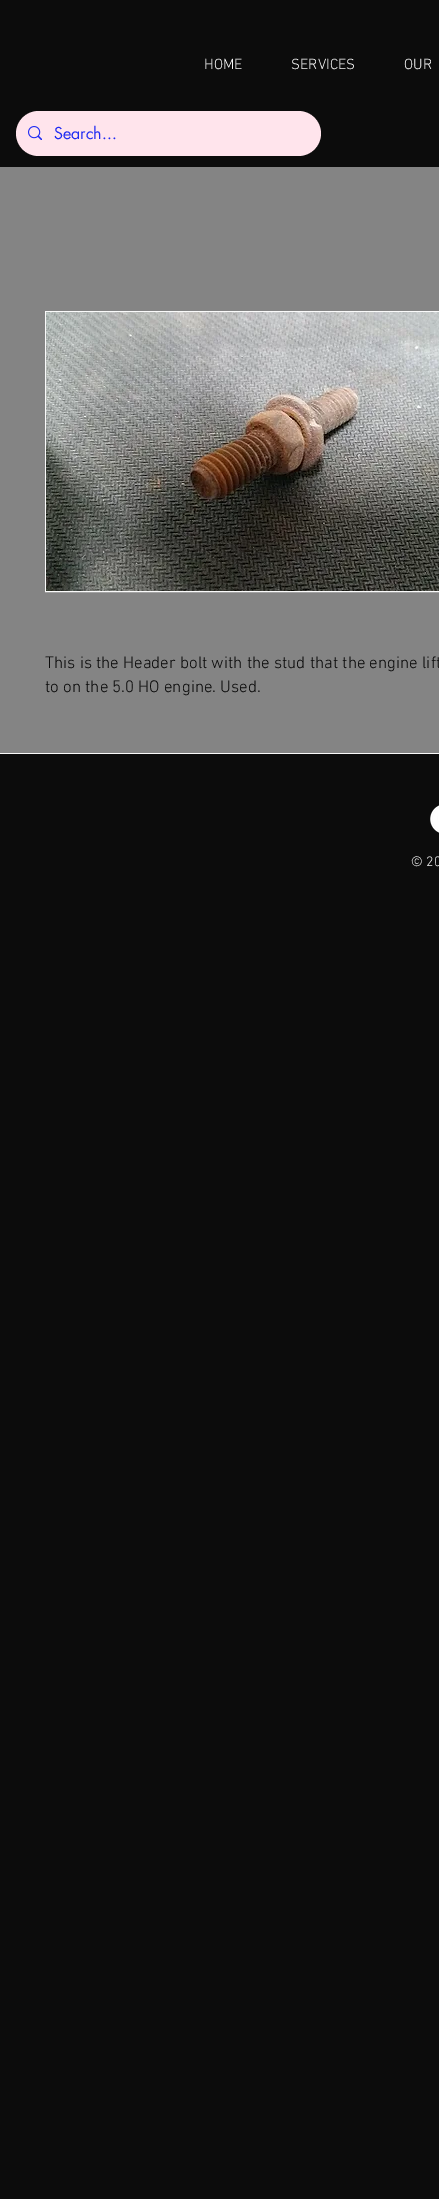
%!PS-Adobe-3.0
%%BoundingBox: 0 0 439 2199
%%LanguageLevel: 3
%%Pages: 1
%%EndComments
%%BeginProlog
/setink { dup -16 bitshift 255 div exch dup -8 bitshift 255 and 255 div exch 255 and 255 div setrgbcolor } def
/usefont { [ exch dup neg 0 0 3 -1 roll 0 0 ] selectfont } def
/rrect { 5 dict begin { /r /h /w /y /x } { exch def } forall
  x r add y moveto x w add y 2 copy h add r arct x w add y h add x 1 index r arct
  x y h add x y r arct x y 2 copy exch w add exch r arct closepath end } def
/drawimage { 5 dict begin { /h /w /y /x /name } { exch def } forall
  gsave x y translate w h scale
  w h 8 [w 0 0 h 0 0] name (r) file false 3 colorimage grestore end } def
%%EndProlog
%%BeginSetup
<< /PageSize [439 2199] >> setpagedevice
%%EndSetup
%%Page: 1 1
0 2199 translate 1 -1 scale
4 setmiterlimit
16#0C0C0C setink
0 0 439 2199 rectfill
/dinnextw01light-Light 15 usefont
16#FAFAFA setink
[
    [(HOME) 204 69]
    [(SERVICES) 291 69]
    [(OUR) 404 69]
] { aload pop moveto show } forall
16#FFE4EC setink
16 111 305 45 22.5 rrect fill
(img1.raw) 28 126 14 14 drawimage
/futura-Regular 16 usefont
16#1F2BF3 setink
54 139 moveto (Search...) show
16#848484 setink
0 167 439 586 rectfill
16#FAFAFA setink
45.5 311.5 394 280 rectstroke
(img2.raw) 46 312 393 279 drawimage
/dinnextw01light-Light 17 usefont
16#0C0C0C setink
45 668 moveto (This is the Header bolt with the stud that the engine lift) show
45 692 moveto (to on the 5.0 HO engine. Used.) show
16#FAFAFA setink
0 753 439 1 rectfill
(img3.raw) 430 805 9 28 drawimage
/dinnextw01light-Light 14 usefont
411 866 moveto (© 20) show
showpage
%%EOF
